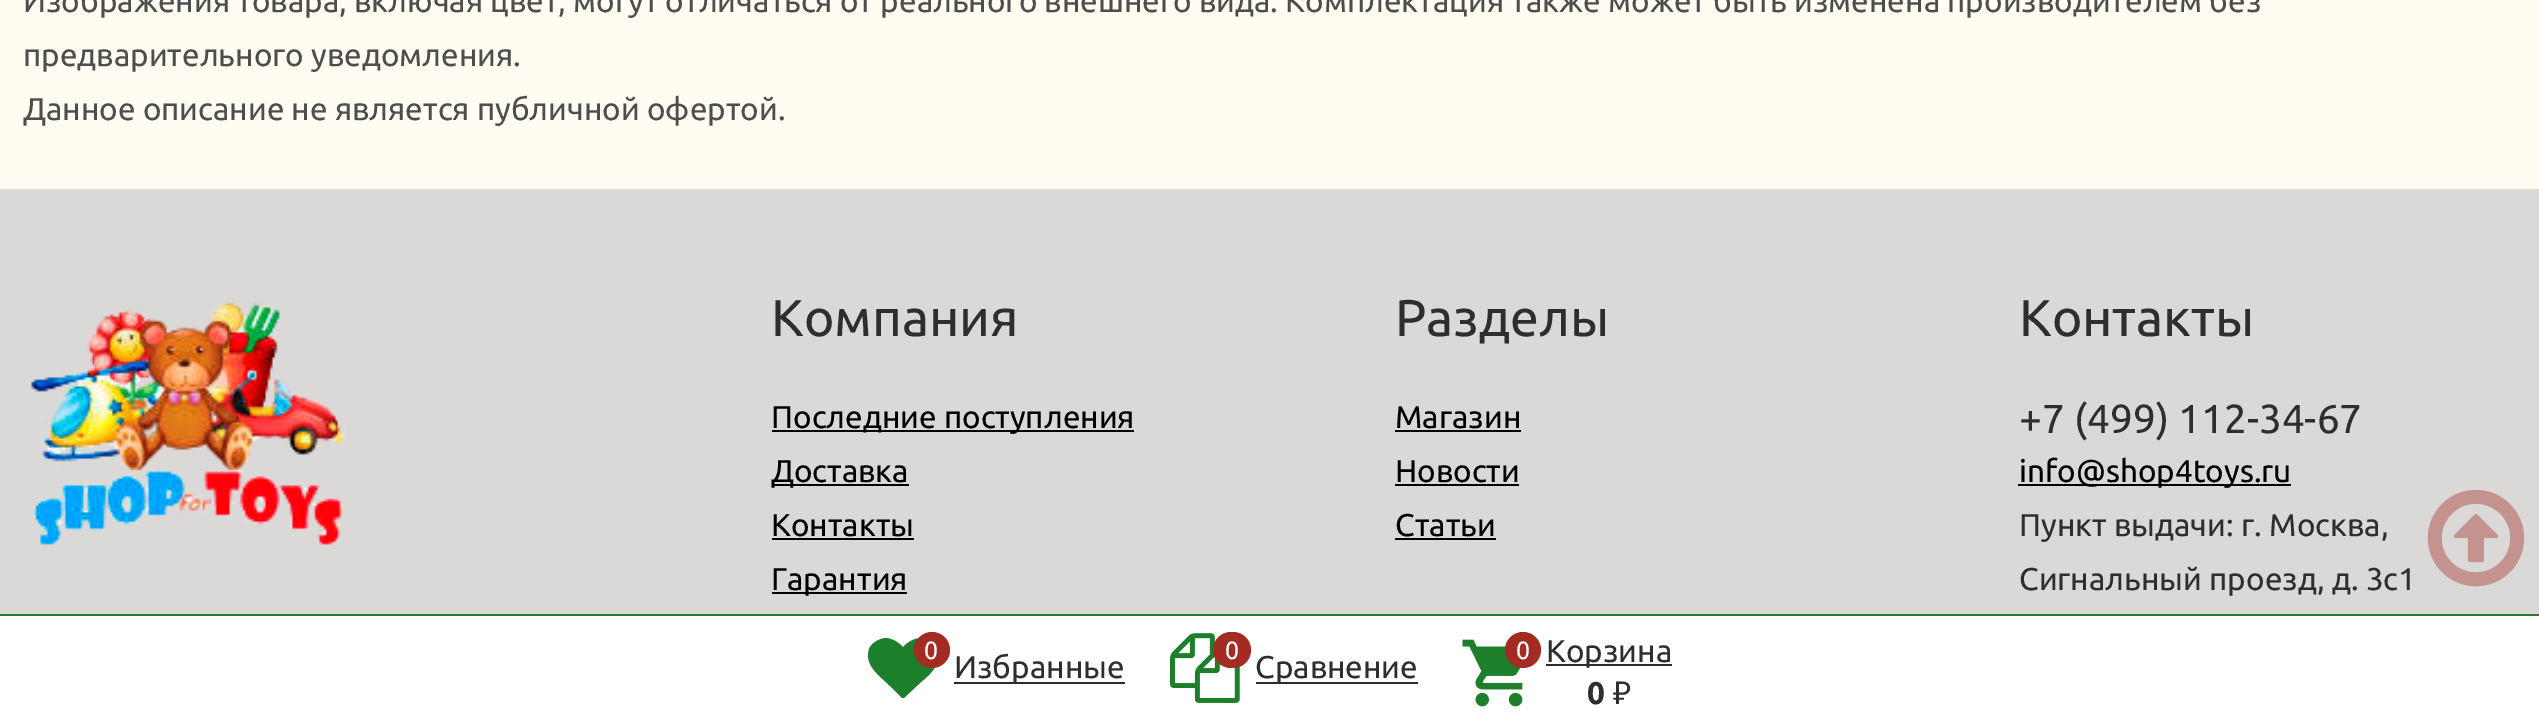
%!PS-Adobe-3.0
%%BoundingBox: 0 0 2539 718
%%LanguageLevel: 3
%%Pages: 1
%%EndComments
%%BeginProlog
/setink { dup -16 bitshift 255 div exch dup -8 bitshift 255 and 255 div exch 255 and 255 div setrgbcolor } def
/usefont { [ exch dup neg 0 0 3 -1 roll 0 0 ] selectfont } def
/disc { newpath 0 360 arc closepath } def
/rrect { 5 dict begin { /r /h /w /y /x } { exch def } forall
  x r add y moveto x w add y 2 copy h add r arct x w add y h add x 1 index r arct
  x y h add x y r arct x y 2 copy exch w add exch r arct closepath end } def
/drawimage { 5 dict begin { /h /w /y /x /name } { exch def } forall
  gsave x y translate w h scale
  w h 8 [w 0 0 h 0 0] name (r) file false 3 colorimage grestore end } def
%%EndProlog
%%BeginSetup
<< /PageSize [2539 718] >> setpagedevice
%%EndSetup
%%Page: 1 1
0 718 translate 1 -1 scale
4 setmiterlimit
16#FFFDF1 setink
0 0 2539 718 rectfill
/Ubuntu-Regular 31.5 usefont
16#4D4D4D setink
[
    [(Изображения товара, включая цвет, могут отличаться от реального внешнего вида. Комплектация также может быть изменена производителем без) 23 12]
    [(предварительного уведомления.) 23 66]
    [(Данное описание не является публичной офертой.) 23 120]
] { aload pop moveto show } forall
16#DBD8D8 setink
0 189 2539 425 rectfill
(img1.raw) 31 302 315 243 drawimage
/Ubuntu-Regular 51.75 usefont
16#2E2E2E setink
771 336 moveto (Компания) show
16#000000 setink
772 430 362 2 rectfill
/Ubuntu-Regular 31.5 usefont
771 428 moveto (Последние поступления) show
772 484 137 2 rectfill
771 482 moveto (Доставка) show
771 536 moveto (Контакты) show
772 538 142 2 rectfill
772 592 135 2 rectfill
771 590 moveto (Гарантия) show
/Ubuntu-Regular 51.75 usefont
16#2E2E2E setink
1395 336 moveto (Разделы) show
/Ubuntu-Regular 31.5 usefont
16#000000 setink
1395 428 moveto (Магазин) show
1395 430 126 2 rectfill
1395 482 moveto (Новости) show
1395 484 124 2 rectfill
1395 536 moveto (Статьи) show
1395 538 101 2 rectfill
/Ubuntu-Regular 51.75 usefont
16#2E2E2E setink
2019 336 moveto (Контакты) show
/Ubuntu-Regular 40.5 usefont
2019 433 moveto (+7 \(499\) 112-34-67) show
16#000000 setink
2018 484 273 2 rectfill
/Ubuntu-Regular 31.5 usefont
2019 482 moveto (info@shop4toys.ru) show
16#2E2E2E setink
2019 536 moveto (Пункт выдачи: г. Москва,) show
2019 590 moveto (Сигнальный проезд, д. 3с1) show
(img2.raw) 2427 489 98 98 drawimage
16#FFFFFF setink
0 616 2539 102 rectfill
16#1D7E2B setink
0 614 2539 2 rectfill
905 697 moveto 904 698 903 698 902 698 curveto 890 686 lineto 880 676 862 664 870 647 curveto 873 642 879 639 885 638 curveto 892 638 898 642 903 647 curveto 911 639 921 635 931 641 curveto 935 643 937 648 938 652 curveto 939 657 938 661 936 665 curveto 933 672 927 677 921 682 curveto closepath fill
16#A32B21 setink
932 650 18 disc fill
/Ubuntu-Regular 25 usefont
16#FFFFFF setink
924 659 moveto (0) show
16#2B2B2B setink
954 682 171 2 rectfill
/Ubuntu-Regular 31.5 usefont
16#2E2E2E setink
954 678 moveto (Избранные) show
(img3.raw) 1170 633 70 70 drawimage
16#A32B21 setink
1213 632 38 36 18 rrect fill
/Ubuntu-Regular 25 usefont
16#FFFFFF setink
1225 659 moveto (0) show
16#2B2B2B setink
1256 682 162 2 rectfill
/Ubuntu-Regular 31.5 usefont
16#2E2E2E setink
1255 678 moveto (Сравнение) show
(img4.raw) 1462 639 61 68 drawimage
16#A32B21 setink
1523 650 18 disc fill
/Ubuntu-Regular 25 usefont
16#FFFFFF setink
1516 659 moveto (0) show
16#2B2B2B setink
1546 664 126 2 rectfill
/Ubuntu-Regular 31.5 usefont
16#2E2E2E setink
1546 662 moveto (Корзина) show
/Ubuntu-Bold 31.5 usefont
1587 704 moveto (0) show
/NotoSans-Regular 31.5 usefont
1613 704 moveto (₽) show
showpage
%%EOF
